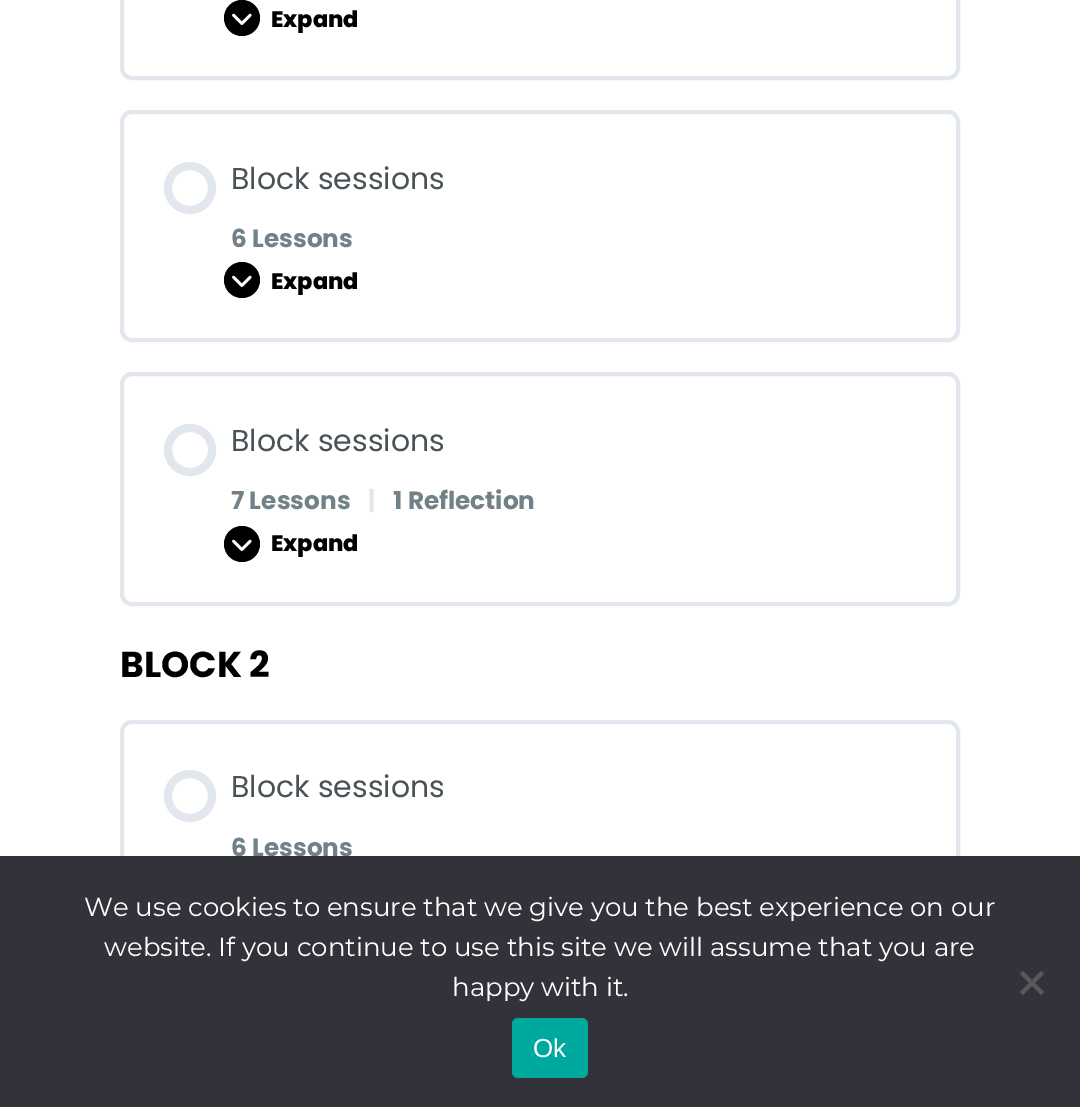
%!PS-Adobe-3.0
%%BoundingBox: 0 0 1080 1107
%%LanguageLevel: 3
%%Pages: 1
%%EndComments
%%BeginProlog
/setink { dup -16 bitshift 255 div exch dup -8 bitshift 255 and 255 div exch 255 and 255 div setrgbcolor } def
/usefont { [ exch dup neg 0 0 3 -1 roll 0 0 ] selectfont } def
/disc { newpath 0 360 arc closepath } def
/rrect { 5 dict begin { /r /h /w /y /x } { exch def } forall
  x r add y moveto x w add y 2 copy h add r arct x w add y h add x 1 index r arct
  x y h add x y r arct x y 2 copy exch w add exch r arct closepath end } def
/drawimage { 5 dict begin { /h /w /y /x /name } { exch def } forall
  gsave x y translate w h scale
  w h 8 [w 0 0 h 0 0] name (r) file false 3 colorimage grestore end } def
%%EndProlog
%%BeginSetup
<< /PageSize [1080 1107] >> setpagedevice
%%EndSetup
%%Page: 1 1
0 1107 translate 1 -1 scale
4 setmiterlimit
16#FFFFFF setink
0 0 1080 1107 rectfill
16#E2E7ED setink
4 setlinewidth
122 -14 836 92 10 rrect stroke
16#000000 setink
242 18 18 disc fill
(img1.raw) 232 13 20 12 drawimage
/Poppins-ExtraBold 22.5 usefont
271 27 moveto (Expand) show
16#E2E7ED setink
122 112 836 228 10 rrect stroke
8 setlinewidth
190 188 22 disc stroke
/Poppins-Regular 30 usefont
16#495255 setink
231 189 moveto (Block sessions) show
/Poppins-Bold 24.75 usefont
16#728188 setink
231 247 moveto (6 Lessons) show
16#000000 setink
242 280 18 disc fill
(img1.raw) 232 275 20 12 drawimage
/Poppins-ExtraBold 22.5 usefont
271 289 moveto (Expand) show
16#E2E7ED setink
4 setlinewidth
122 374 836 230 10 rrect stroke
8 setlinewidth
190 450 22 disc stroke
/Poppins-Regular 30 usefont
16#495255 setink
231 451 moveto (Block sessions) show
/Poppins-Bold 24.75 usefont
16#728188 setink
231 509 moveto (7 Lessons) show
16#E2E7ED setink
368 509 moveto (|) show
16#728188 setink
393 509 moveto (1 Reflection) show
16#000000 setink
242 544 18 disc fill
(img1.raw) 232 539 20 12 drawimage
/Poppins-ExtraBold 22.5 usefont
271 551 moveto (Expand) show
/Poppins-Bold 36 usefont
120 677 moveto (BLOCK 2) show
16#E2E7ED setink
4 setlinewidth
122 722 836 228 10 rrect stroke
8 setlinewidth
190 796 22 disc stroke
/Poppins-Regular 30 usefont
16#495255 setink
231 797 moveto (Block sessions) show
/Poppins-Bold 24.75 usefont
16#728188 setink
231 856 moveto (6 Lessons) show
16#32323A setink
0 856 1080 251 rectfill
/Montserrat-Regular 26 usefont
16#FFFFFF setink
[
    [(We use cookies to ensure that we give you the best experience on our) 84 916]
    [(website. If you continue to use this site we will assume that you are) 104 956]
    [(happy with it.) 452 996]
] { aload pop moveto show } forall
16#59595D setink
1041 971 moveto 1044 974 lineto 1023 995 lineto 1020 992 lineto closepath fill
1020 974 moveto 1023 971 lineto 1044 992 lineto 1041 995 lineto closepath fill
16#00A99D setink
512 1018 76 60 6 rrect fill
/LiberationSans-Regular 26 usefont
16#FFFFFF setink
533 1057 moveto (Ok) show
showpage
%%EOF
